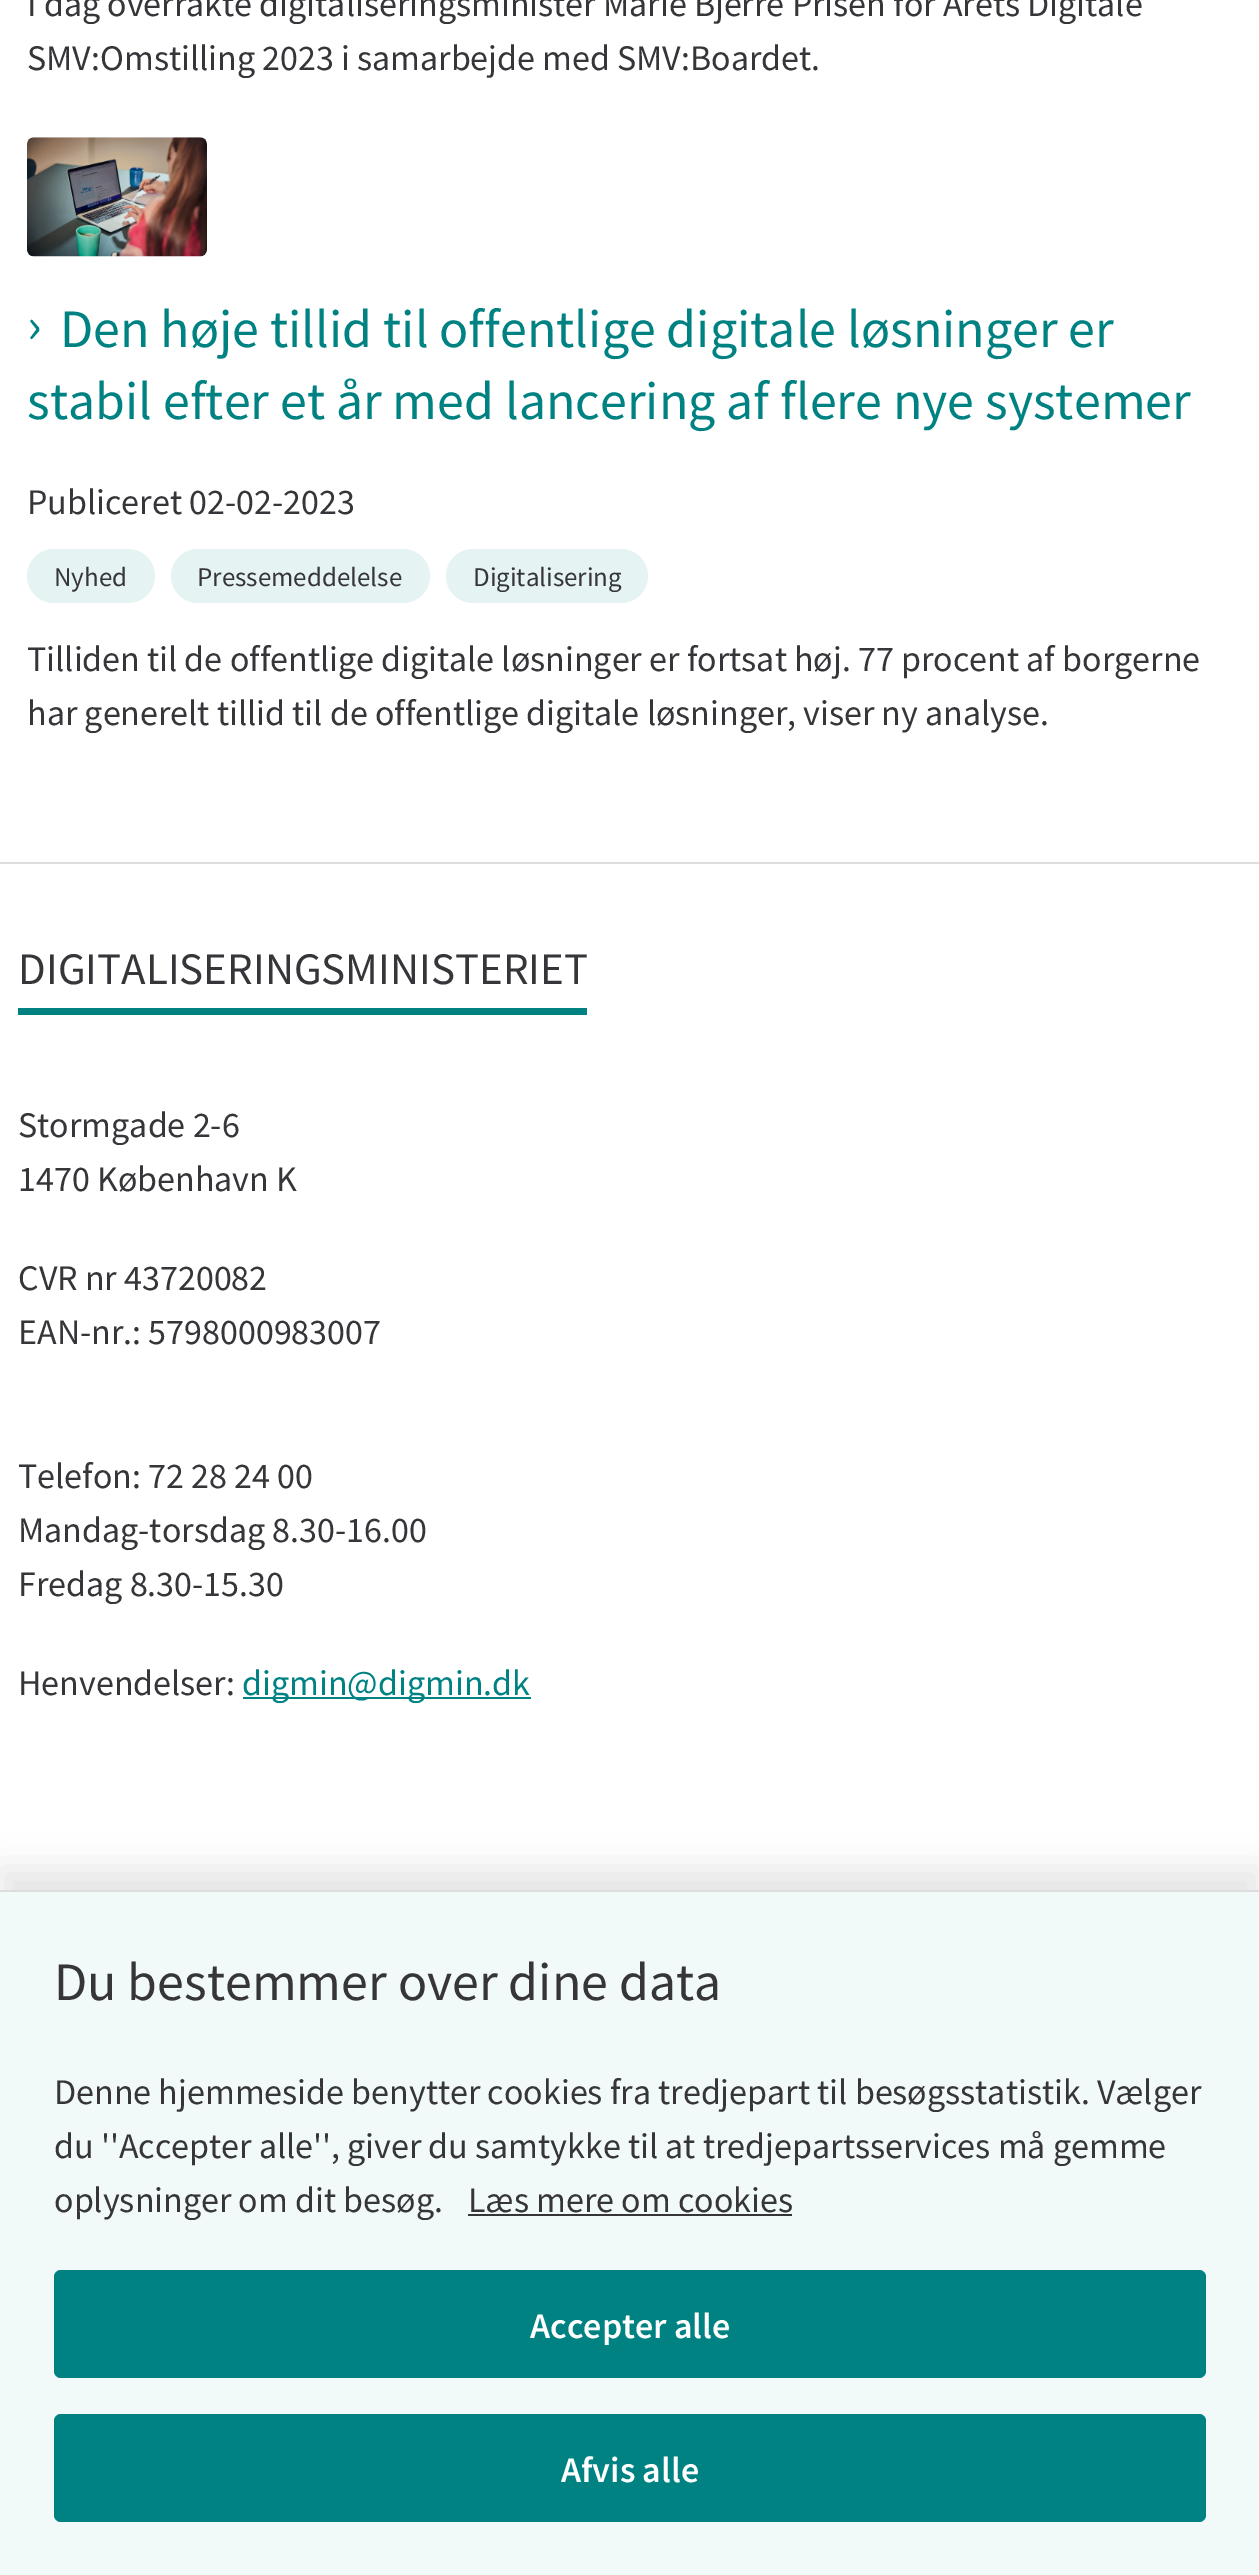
%!PS-Adobe-3.0
%%BoundingBox: 0 0 1259 2575
%%LanguageLevel: 3
%%Pages: 1
%%EndComments
%%BeginProlog
/setink { dup -16 bitshift 255 div exch dup -8 bitshift 255 and 255 div exch 255 and 255 div setrgbcolor } def
/usefont { [ exch dup neg 0 0 3 -1 roll 0 0 ] selectfont } def
/setalpha { dup .setfillconstantalpha .setstrokeconstantalpha } def
/rrect { 5 dict begin { /r /h /w /y /x } { exch def } forall
  x r add y moveto x w add y 2 copy h add r arct x w add y h add x 1 index r arct
  x y h add x y r arct x y 2 copy exch w add exch r arct closepath end } def
/softshadow { 12 dict begin { /a /b /q /h /w /y /x } { exch def } forall gsave /was 0 def
  9 -2 -9 { dup b mul 4 div /e exch def 1 sub .425 mul 2.718 exch exp 1 add a .99 .min exch div /now exch def
    1 1 now sub 1 was sub div sub setalpha /was now def
    w h .min e 2 mul add 0 gt { x e sub y e sub w e 2 mul add h e 2 mul add
      q e add b .6 mul add w h .min 2 div e add .min 0 .max rrect fill } if } for grestore end } def
/drawimage { 5 dict begin { /h /w /y /x /name } { exch def } forall
  gsave x y translate w h scale
  w h 8 [w 0 0 h 0 0] name (r) file false 3 colorimage grestore end } def
%%EndProlog
%%BeginSetup
<< /PageSize [1259 2575] /PageUsesTransparency true >> setpagedevice
%%EndSetup
%%Page: 1 1
0 .pushpdf14devicefilter
0 2575 translate 1 -1 scale
4 setmiterlimit
16#FFFFFF setink
0 0 1259 2575 rectfill
/SourceSansPro-Regular 36 usefont
16#36363A setink
27 16 moveto (I dag overrakte digitaliseringsminister Marie Bjerre Prisen for Årets Digitale) show
27 70 moveto (SMV:Omstilling 2023 i samarbejde med SMV:Boardet.) show
(img1.raw) 27 137 180 120 drawimage
/SourceSansPro-Regular 54 usefont
16#008282 setink
[
    [(›) 27 343]
    [(Den høje tillid til offentlige digitale løsninger er) 60 347]
    [(stabil efter et år med lancering af flere nye systemer) 27 419]
] { aload pop moveto show } forall
/SourceSansPro-Regular 36 usefont
16#36363A setink
27 514 moveto (Publiceret 02-02-2023) show
16#E6F3F3 setink
27 549 128 54 27 rrect fill
/SourceSansPro-Regular 27 usefont
16#36363A setink
54 586 moveto (Nyhed) show
16#E6F3F3 setink
171 549 259 54 27 rrect fill
16#36363A setink
197 586 moveto (Pressemeddelelse) show
16#E6F3F3 setink
446 549 202 54 27 rrect fill
16#36363A setink
473 586 moveto (Digitalisering) show
/SourceSansPro-Regular 36 usefont
27 671 moveto (Tilliden til de offentlige digitale løsninger er fortsat høj. 77 procent af borgerne) show
27 725 moveto (har generelt tillid til de offentlige digitale løsninger, viser ny analyse.) show
16#DDDDDD setink
0 862 1259 2 rectfill
16#008282 setink
18 1008 569 7 rectfill
/SourceSansPro-Regular 45 usefont
16#36363A setink
18 984 moveto (DIGITALISERINGSMINISTERIET) show
/SourceSansPro-Regular 36 usefont
[
    [(Stormgade 2-6) 18 1137]
    [(1470 København K) 18 1191]
    [(CVR nr 43720082) 18 1290]
    [(EAN-nr.: 5798000983007) 18 1344]
    [(Telefon: 72 28 24 00) 18 1488]
    [(Mandag-torsdag 8.30-16.00) 18 1542]
    [(Fredag 8.30-15.30) 18 1596]
    [(Henvendelser:) 18 1695]
] { aload pop moveto show } forall
16#008282 setink
243 1697 288 2 rectfill
242 1695 moveto (digmin@digmin.dk) show
16#000000 setink
0 1868 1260 686 0 17 0.1 softshadow
16#F2F9F9 setink
0 1892 1259 683 rectfill
16#DDDDDD setink
0 1890 1259 2 rectfill
/SourceSansPro-Regular 54 usefont
16#36363A setink
54 2000 moveto (Du bestemmer over dine data) show
/SourceSansPro-Regular 36 usefont
[
    [(Denne hjemmeside benytter cookies fra tredjepart til besøgsstatistik. Vælger) 54 2104]
    [(du ''Accepter alle'', giver du samtykke til at tredjepartsservices må gemme) 54 2158]
    [(oplysninger om dit besøg.) 54 2212]
    [(Læs mere om cookies) 468 2212]
] { aload pop moveto show } forall
468 2214 324 2 rectfill
16#008282 setink
54 2270 1152 108 7 rrect fill
/SourceSansPro-SemiBold 36 usefont
16#FFFFFF setink
530 2338 moveto (Accepter alle) show
16#008282 setink
54 2414 1152 108 7 rrect fill
16#FFFFFF setink
561 2482 moveto (Afvis alle) show
.poppdf14devicefilter showpage
%%EOF
